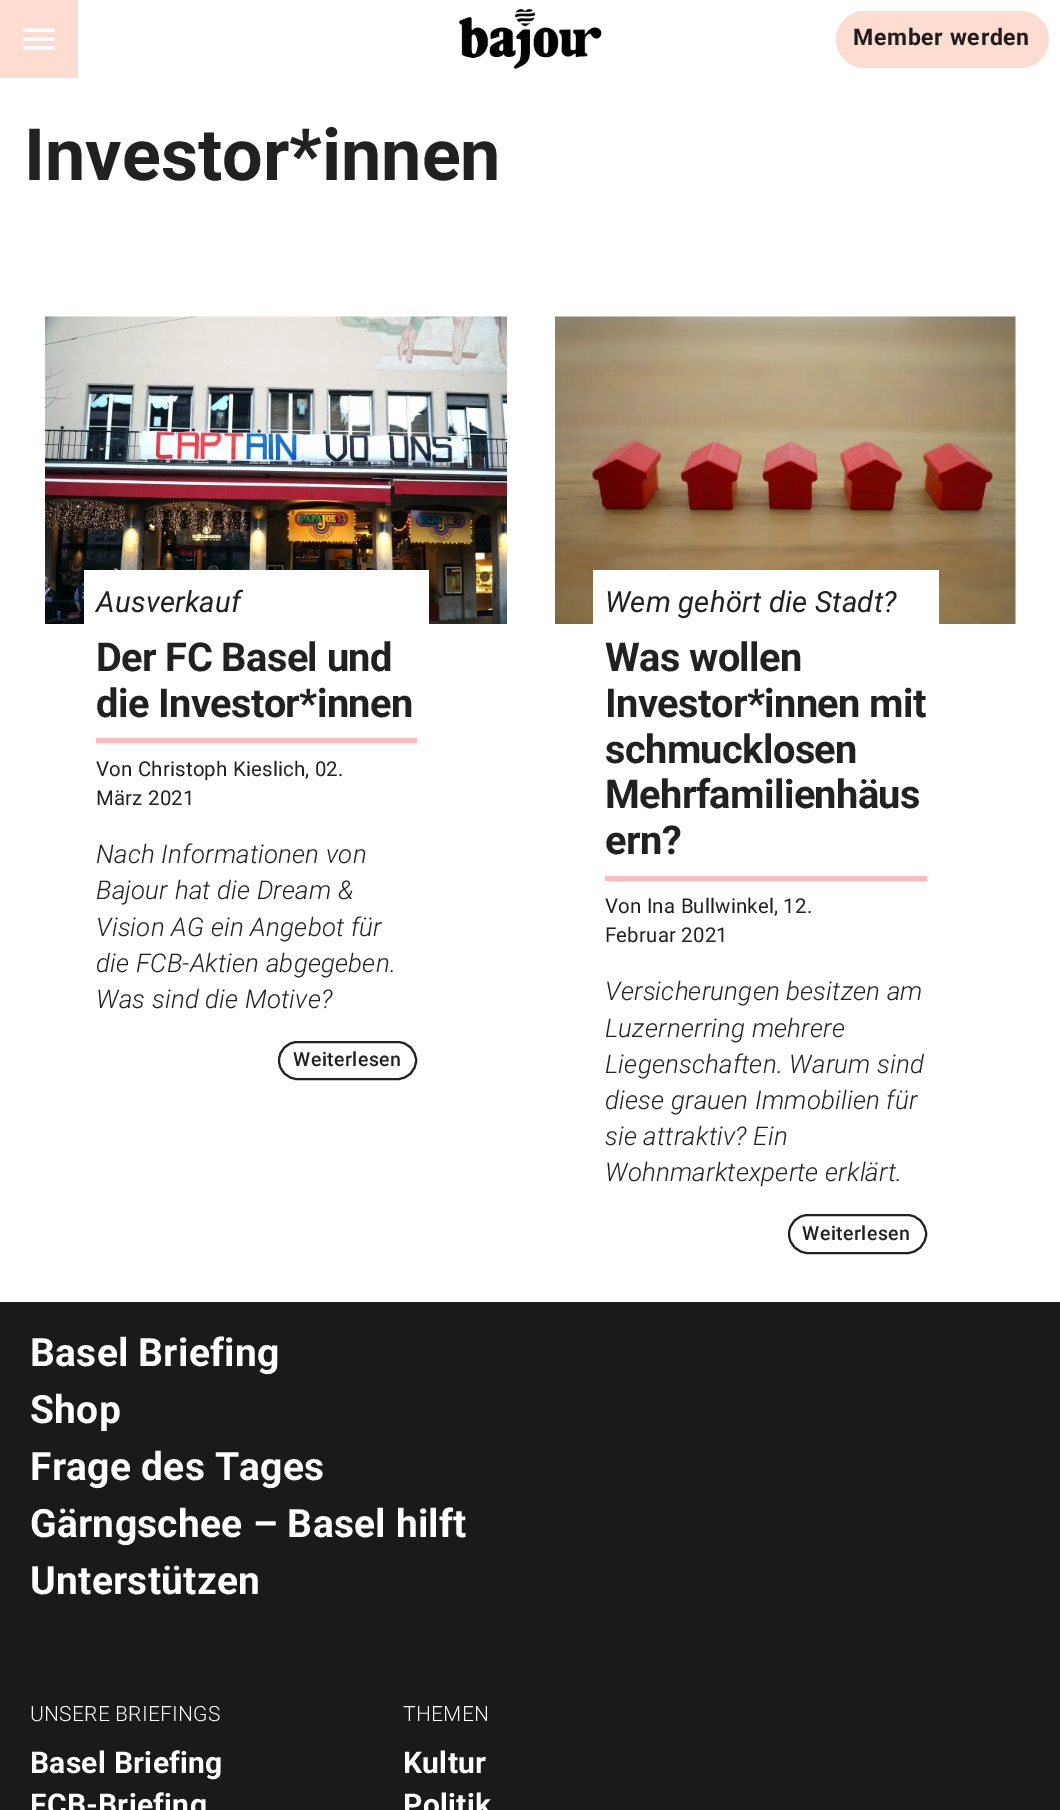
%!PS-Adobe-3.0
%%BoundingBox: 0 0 1060 1810
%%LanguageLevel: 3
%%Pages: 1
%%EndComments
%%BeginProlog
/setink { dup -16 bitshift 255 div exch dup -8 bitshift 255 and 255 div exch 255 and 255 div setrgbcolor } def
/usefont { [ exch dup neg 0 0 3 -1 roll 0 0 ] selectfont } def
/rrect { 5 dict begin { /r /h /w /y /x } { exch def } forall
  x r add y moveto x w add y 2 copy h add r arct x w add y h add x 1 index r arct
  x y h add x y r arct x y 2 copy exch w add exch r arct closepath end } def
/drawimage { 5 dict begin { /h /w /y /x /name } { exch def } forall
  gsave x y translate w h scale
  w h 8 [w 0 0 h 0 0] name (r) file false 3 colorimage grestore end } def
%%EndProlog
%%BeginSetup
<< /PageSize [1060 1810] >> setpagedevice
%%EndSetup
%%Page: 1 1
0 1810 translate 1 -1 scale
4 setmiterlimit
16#FFFFFF setink
0 0 1060 1810 rectfill
16#FDDDD2 setink
0 0 78 78 rectfill
(img1.raw) 23 28 32 22 drawimage
(img2.raw) 458 9 144 60 drawimage
836 11 213 57 28.5 rrect fill
/Roboto-Bold 23 usefont
16#211D1B setink
853 45 moveto 0.7 0 (Member werden) ashow
/Roboto-Bold 72 usefont
16#212121 setink
24 180 moveto (Investor*innen) show
(img3.raw) 45 316 462 308 drawimage
16#FFFFFF setink
84 570 345 54 rectfill
/Roboto-Italic 29.25 usefont
16#212121 setink
96 612 moveto 0.25 0 (Ausverkauf) ashow
/Roboto-Bold 39.75 usefont
96 671 moveto -0.6 0 (Der FC Basel und) ashow
96 717 moveto -0.6 0 (die Investor*innen) ashow
16#FFBABA setink
96 738 321 5 rectfill
/Roboto-Regular 20.4 usefont
16#212121 setink
96 776 moveto 0.2 0 (Von Christoph Kieslich, 02.) ashow
96 805 moveto 0.2 0 (März 2021) ashow
/Roboto-LightItalic 25.8 usefont
96 863 moveto 0.25 0 (Nach Informationen von) ashow
96 899 moveto 0.25 0 (Bajour hat die Dream &) ashow
96 936 moveto 0.25 0 (Vision AG ein Angebot für) ashow
96 972 moveto 0.25 0 (die FCB-Aktien abgegeben.) ashow
96 1008 moveto 0.25 0 (Was sind die Motive?) ashow
2 setlinewidth
279 1042 137 37 18.5 rrect stroke
/Roboto-Medium 19.5 usefont
293 1066 moveto 0.5 0 (Weiterlesen) ashow
(img4.raw) 555 316 461 308 drawimage
16#FFFFFF setink
593 570 346 54 rectfill
/Roboto-Italic 29.25 usefont
16#212121 setink
605 612 moveto 0.25 0 (Wem gehört die Stadt?) ashow
/Roboto-Bold 39.75 usefont
605 671 moveto -0.6 0 (Was wollen) ashow
605 717 moveto -0.6 0 (Investor*innen mit) ashow
605 763 moveto -0.6 0 (schmucklosen) ashow
605 808 moveto -0.6 0 (Mehrfamilienhäus) ashow
605 854 moveto -0.6 0 (ern?) ashow
16#FFBABA setink
605 876 322 5 rectfill
/Roboto-Regular 20.4 usefont
16#212121 setink
605 913 moveto 0.2 0 (Von Ina Bullwinkel, 12.) ashow
605 942 moveto 0.2 0 (Februar 2021) ashow
/Roboto-LightItalic 25.8 usefont
605 1000 moveto 0.25 0 (Versicherungen besitzen am) ashow
605 1037 moveto 0.25 0 (Luzernerring mehrere) ashow
605 1073 moveto 0.25 0 (Liegenschaften. Warum sind) ashow
605 1109 moveto 0.25 0 (diese grauen Immobilien für) ashow
605 1145 moveto 0.25 0 (sie attraktiv? Ein) ashow
605 1181 moveto 0.25 0 (Wohnmarktexperte erklärt.) ashow
789 1215 137 38 19 rrect stroke
/Roboto-Medium 19.5 usefont
802 1240 moveto 0.5 0 (Weiterlesen) ashow
16#1A1A1A setink
0 1302 1060 508 rectfill
/Roboto-Bold 39 usefont
16#FFFFFF setink
30 1366 moveto 0.25 0 (Basel Briefing) ashow
30 1423 moveto 0.25 0 (Shop) ashow
30 1480 moveto 0.25 0 (Frage des Tages) ashow
30 1537 moveto 0.25 0 (Gärngschee – Basel hilft) ashow
30 1594 moveto 0.25 0 (Unterstützen) ashow
/Roboto-Light 21 usefont
30 1721 moveto 0.25 0 (UNSERE BRIEFINGS) ashow
/Roboto-Bold 30 usefont
30 1773 moveto 0.25 0 (Basel Briefing) ashow
30 1815 moveto 0.25 0 (FCB-Briefing) ashow
/Roboto-Light 21 usefont
403 1721 moveto 0.25 0 (THEMEN) ashow
/Roboto-Bold 30 usefont
403 1773 moveto 0.25 0 (Kultur) ashow
403 1815 moveto 0.25 0 (Politik) ashow
showpage
%%EOF
